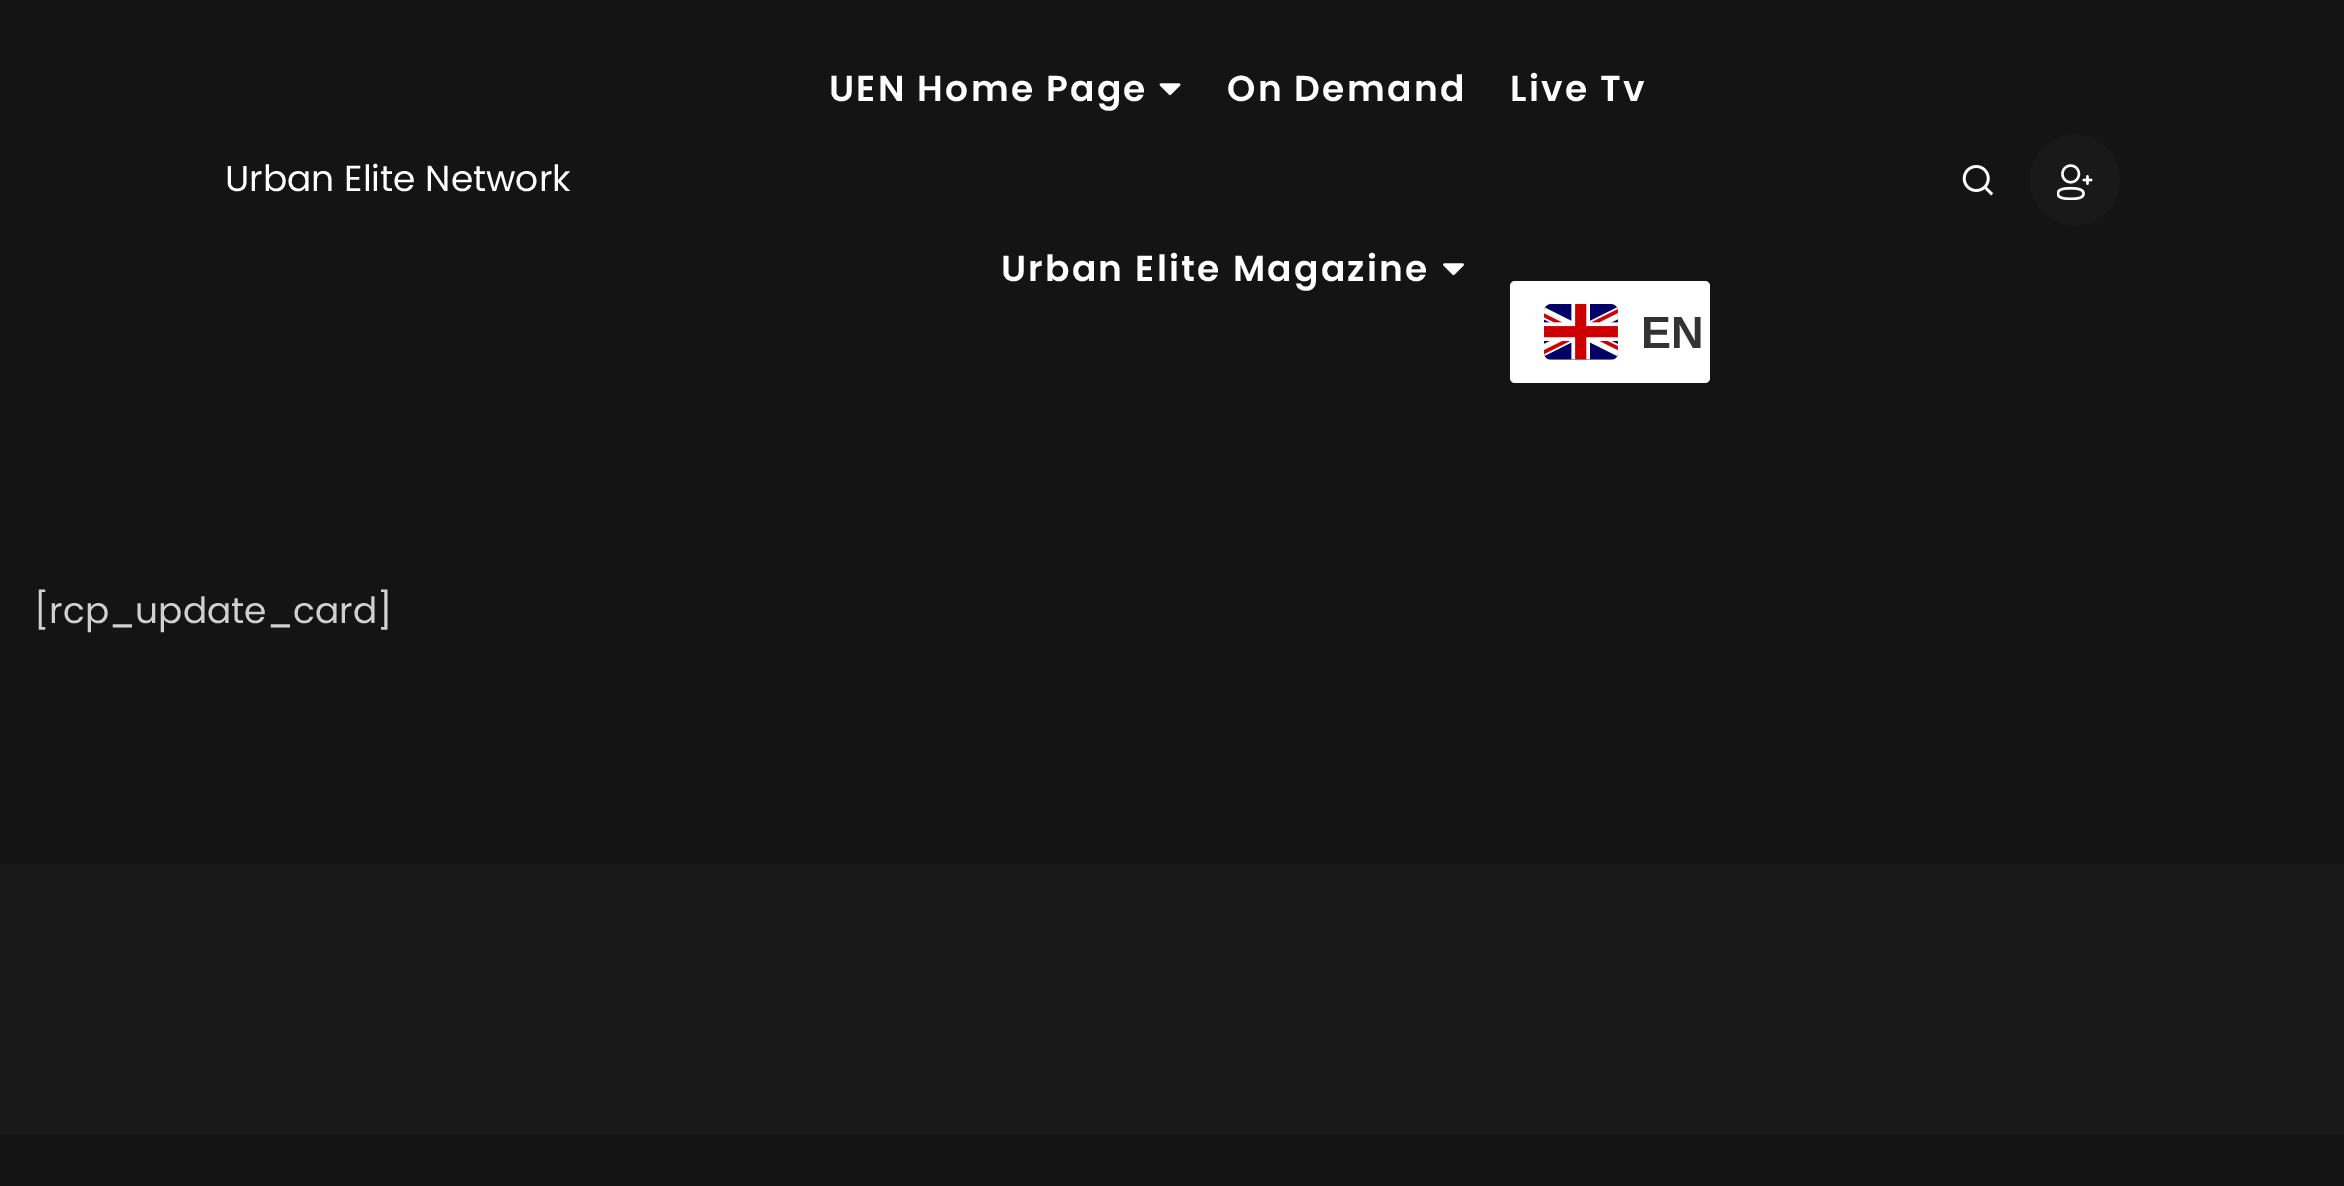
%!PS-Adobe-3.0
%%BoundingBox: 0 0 2344 1186
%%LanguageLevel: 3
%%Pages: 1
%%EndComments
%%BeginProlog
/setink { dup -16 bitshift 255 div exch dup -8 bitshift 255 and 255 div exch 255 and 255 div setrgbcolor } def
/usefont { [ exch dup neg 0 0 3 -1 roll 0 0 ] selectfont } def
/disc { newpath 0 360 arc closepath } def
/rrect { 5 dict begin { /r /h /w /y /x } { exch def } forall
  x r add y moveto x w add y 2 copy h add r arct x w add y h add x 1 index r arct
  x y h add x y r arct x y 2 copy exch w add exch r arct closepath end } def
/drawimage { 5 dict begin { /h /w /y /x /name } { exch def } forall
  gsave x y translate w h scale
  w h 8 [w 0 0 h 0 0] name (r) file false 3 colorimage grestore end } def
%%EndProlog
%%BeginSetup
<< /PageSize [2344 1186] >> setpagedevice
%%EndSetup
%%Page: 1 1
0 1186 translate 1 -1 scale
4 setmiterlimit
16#141414 setink
0 0 2344 1186 rectfill
/Poppins-Regular 36 usefont
16#FFFFFF setink
225 191 moveto (Urban Elite Network) show
/Poppins-SemiBold 36 usefont
829 101 moveto 2.25 0 (UEN Home Page) ashow
(img1.raw) 1159 83 22 13 drawimage
1227 101 moveto 2.25 0 (On Demand) ashow
1510 101 moveto 2.25 0 (Live Tv) ashow
1001 281 moveto 2.25 0 (Urban Elite Magazine) ashow
(img2.raw) 1443 263 21 13 drawimage
1510 281 200 102 5 rrect fill
(img3.raw) 1544 304 74 56 drawimage
/LiberationSans-Bold 45 usefont
16#333333 setink
1641 348 moveto (EN) show
(img4.raw) 1962 165 32 31 drawimage
16#191919 setink
2075 180 45 disc fill
(img5.raw) 2057 164 36 36 drawimage
/Poppins-Regular 36 usefont
16#D1D0CF setink
34 623 moveto ([rcp_update_card]) show
16#191919 setink
0 864 2344 270 rectfill
showpage
%%EOF
